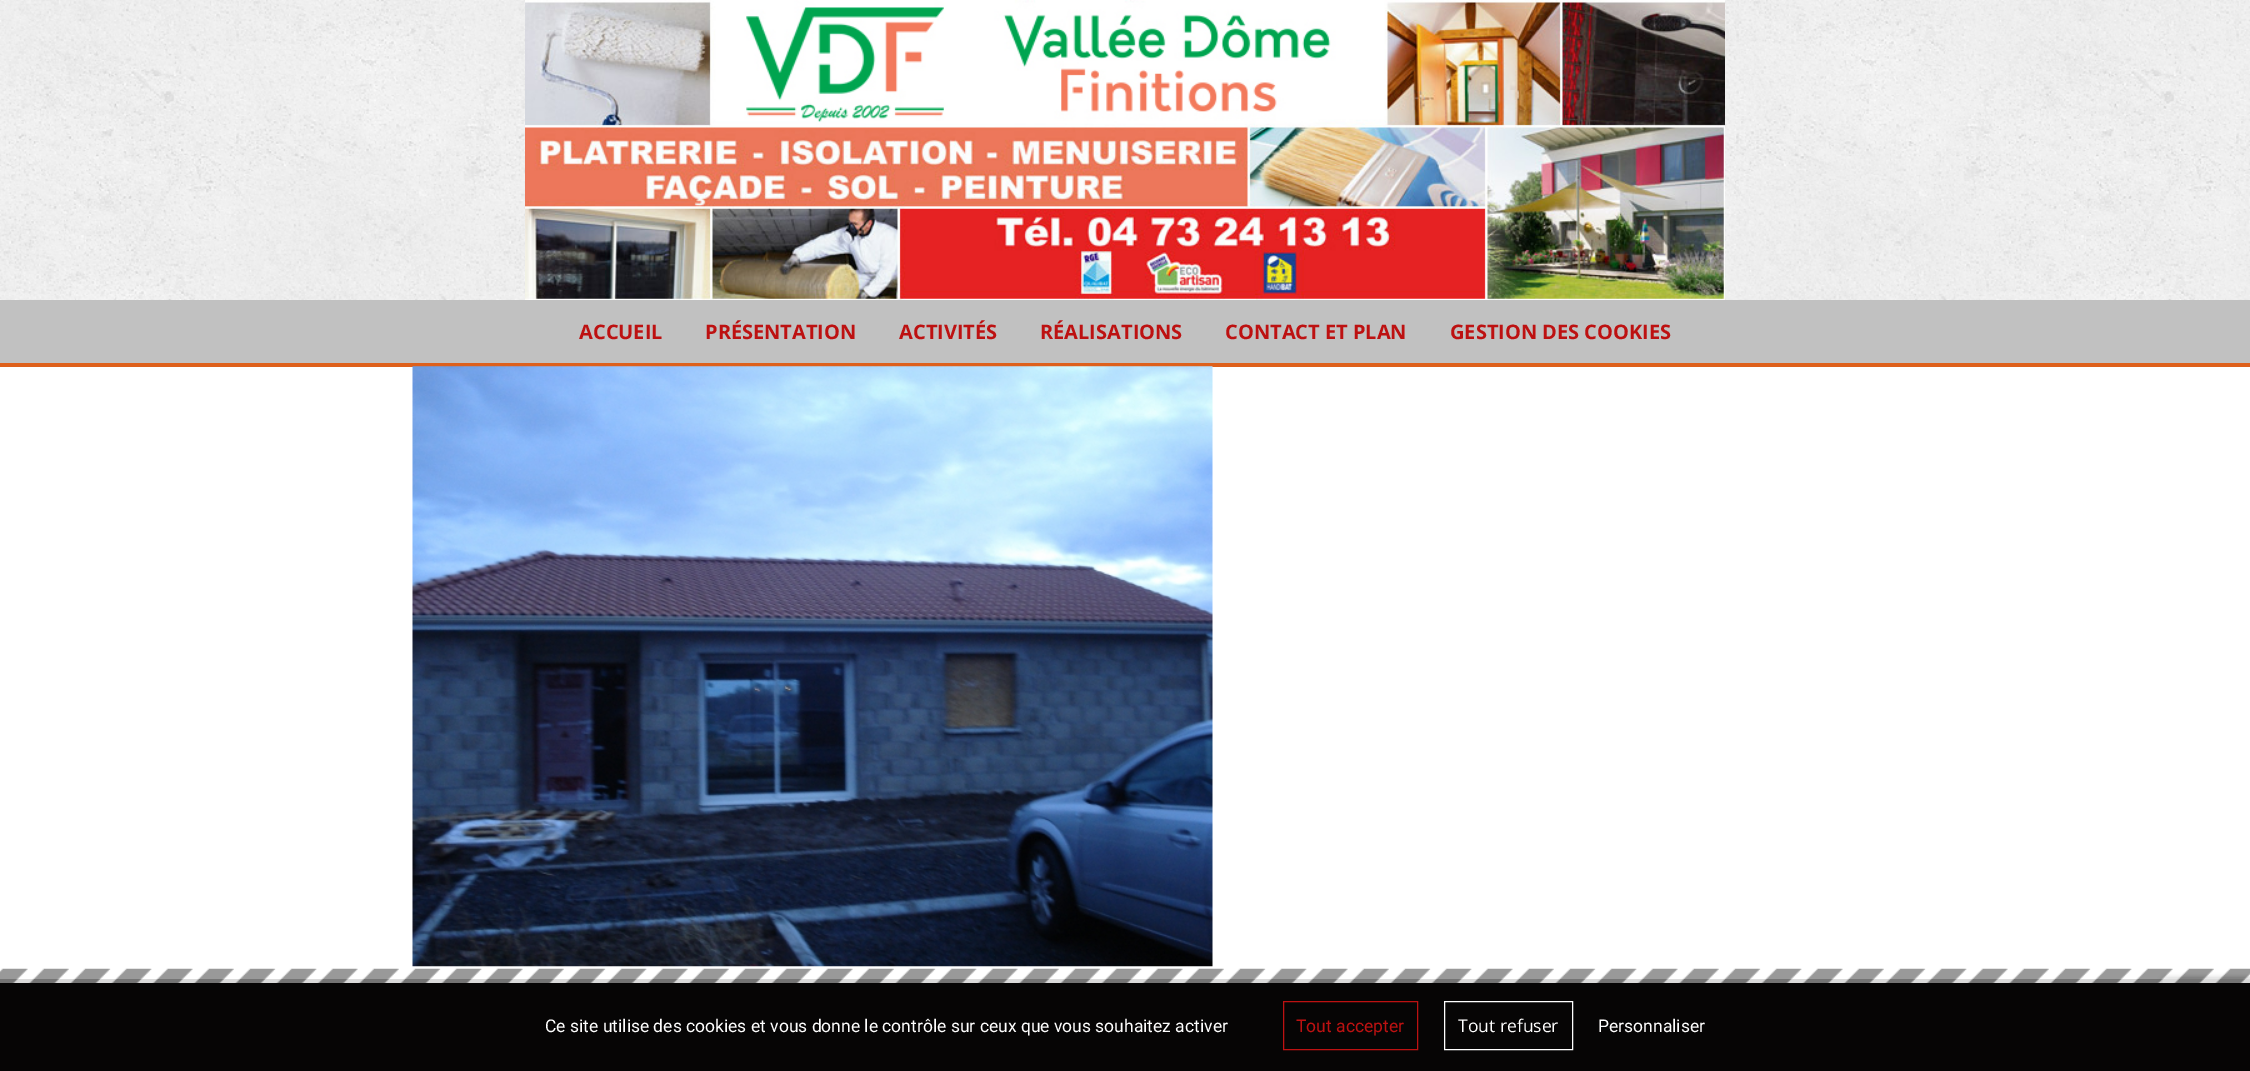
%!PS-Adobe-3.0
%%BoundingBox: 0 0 2250 1071
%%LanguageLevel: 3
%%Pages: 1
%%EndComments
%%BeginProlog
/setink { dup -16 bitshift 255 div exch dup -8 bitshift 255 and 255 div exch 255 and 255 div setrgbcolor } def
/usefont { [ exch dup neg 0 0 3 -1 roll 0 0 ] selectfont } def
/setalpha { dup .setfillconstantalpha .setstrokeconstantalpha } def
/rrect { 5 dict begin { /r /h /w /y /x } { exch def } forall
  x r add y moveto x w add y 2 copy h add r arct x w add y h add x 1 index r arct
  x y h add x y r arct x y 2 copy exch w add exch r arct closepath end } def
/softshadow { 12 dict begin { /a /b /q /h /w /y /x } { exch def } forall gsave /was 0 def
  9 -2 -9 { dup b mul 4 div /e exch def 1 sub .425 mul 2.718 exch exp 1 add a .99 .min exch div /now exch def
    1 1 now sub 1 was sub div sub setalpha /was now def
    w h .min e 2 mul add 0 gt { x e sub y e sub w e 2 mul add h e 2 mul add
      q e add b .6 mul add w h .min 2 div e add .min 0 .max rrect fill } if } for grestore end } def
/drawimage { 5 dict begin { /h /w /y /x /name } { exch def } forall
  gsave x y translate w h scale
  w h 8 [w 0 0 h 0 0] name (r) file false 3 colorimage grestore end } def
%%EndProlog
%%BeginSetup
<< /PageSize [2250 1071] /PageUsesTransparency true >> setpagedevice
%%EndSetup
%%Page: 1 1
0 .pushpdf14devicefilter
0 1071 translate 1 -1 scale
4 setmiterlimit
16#FFFFFF setink
0 0 2250 1071 rectfill
(img1.raw) 0 0 2250 300 drawimage
(img2.raw) 525 0 1200 300 drawimage
16#C1C1C1 setink
0 300 2250 63 rectfill
16#DE601B setink
0 363 2250 4 rectfill
/OpenSans-Bold 20 usefont
16#BD1111 setink
[
    [(ACCUEIL) 579 339]
    [(PRÉSENTATION) 705 339]
    [(ACTIVITÉS) 899 339]
    [(RÉALISATIONS) 1040 339]
    [(CONTACT ET PLAN) 1225 339]
    [(GESTION DES COOKIES) 1450 339]
] { aload pop moveto show } forall
(img3.raw) 412 366 801 601 drawimage
16#C1C1C1 setink
0 979 2250 4 rectfill
gsave
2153 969 moveto 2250 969 lineto 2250 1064 lineto 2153 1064 lineto closepath 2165.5 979 moveto 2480.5 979 lineto 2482 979 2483 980 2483 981.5 curveto 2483 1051.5 lineto 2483 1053 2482 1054 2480.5 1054 curveto 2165.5 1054 lineto 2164 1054 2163 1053 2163 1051.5 curveto 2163 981.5 lineto 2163 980 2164 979 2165.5 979 curveto closepath eoclip newpath
16#808080 setink
2163 979 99 75 2.5 3 1 softshadow
grestore
(img4.raw) 0 968 2250 15 drawimage
16#060505 setink
0 983 2250 88 rectfill
/Roboto-Regular 17.5 usefont
16#FFFFFF setink
545 1032 moveto (Ce site utilise des cookies et vous donne le contrôle sur ceux que vous souhaitez activer) show
16#BD1111 setink
1283.5 1001.5 134 48 rectstroke
1296 1032 moveto (Tout accepter) show
16#FFFFFF setink
1444.5 1001.5 128 48 rectstroke
/OpenSans-Regular 17.5 usefont
1458 1032 moveto (Tout refuser) show
/Roboto-Regular 17.5 usefont
1598 1032 moveto (Personnaliser) show
.poppdf14devicefilter showpage
%%EOF
